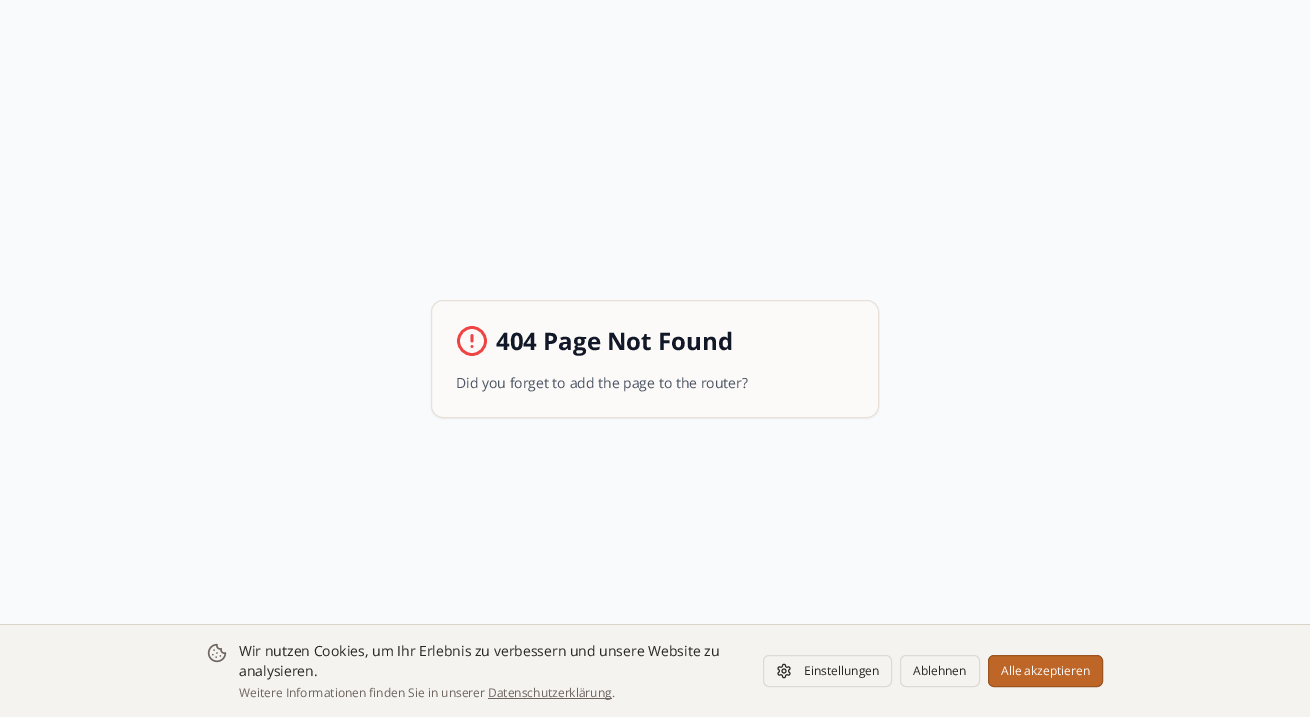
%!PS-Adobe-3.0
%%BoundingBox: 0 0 1310 717
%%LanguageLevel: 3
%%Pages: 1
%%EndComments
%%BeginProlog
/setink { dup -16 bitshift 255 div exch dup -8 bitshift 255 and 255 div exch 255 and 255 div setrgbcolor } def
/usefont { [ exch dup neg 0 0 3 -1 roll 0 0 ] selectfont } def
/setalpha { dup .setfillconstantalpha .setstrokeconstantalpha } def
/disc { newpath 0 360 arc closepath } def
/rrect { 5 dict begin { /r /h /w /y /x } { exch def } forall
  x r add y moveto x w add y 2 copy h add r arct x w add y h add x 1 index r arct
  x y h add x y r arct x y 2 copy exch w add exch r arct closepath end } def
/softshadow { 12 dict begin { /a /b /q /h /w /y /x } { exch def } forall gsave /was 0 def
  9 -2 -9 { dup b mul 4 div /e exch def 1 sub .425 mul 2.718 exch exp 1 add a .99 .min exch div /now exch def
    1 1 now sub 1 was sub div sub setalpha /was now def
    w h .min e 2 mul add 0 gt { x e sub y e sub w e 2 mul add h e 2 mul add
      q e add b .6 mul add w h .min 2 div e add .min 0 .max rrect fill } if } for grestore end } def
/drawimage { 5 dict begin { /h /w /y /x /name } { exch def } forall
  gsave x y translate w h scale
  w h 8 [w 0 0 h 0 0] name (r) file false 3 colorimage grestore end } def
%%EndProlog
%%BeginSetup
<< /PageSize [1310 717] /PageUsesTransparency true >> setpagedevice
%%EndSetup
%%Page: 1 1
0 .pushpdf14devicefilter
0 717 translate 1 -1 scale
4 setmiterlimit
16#F9FAFB setink
0 0 1310 717 rectfill
16#000000 setink
431 301 448 118 12 1 0.05 softshadow
16#FCFAF8 setink
431.5 300.5 447 117 11.5 rrect gsave fill grestore
16#E7E1DA setink
stroke
16#EF4444 setink
2.7 setlinewidth
472 341 13.5 disc stroke
1 setlinecap
1 setlinejoin
472 335.5 moveto 472 341 lineto 472 346.5 moveto 472 346.5 lineto stroke
/OpenSans-Bold 24 usefont
16#111827 setink
496 350 moveto (404 Page Not Found) show
/OpenSans-Regular 14 usefont
16#4B5563 setink
456 388 moveto (Did you forget to add the page to the router?) show
16#F5F3F0 setink
0 625 1310 92 rectfill
16#D9D2C9 setink
0 624 1310 1 rectfill
(img1.raw) 207 643 20 20 drawimage
16#292623 setink
239 656 moveto (Wir nutzen Cookies, um Ihr Erlebnis zu verbessern und unsere Website zu) show
239 676 moveto (analysieren.) show
/OpenSans-Regular 12 usefont
16#6E655E setink
239 697 moveto (Weitere Informationen finden Sie in unserer) show
488 698 124 1 rectfill
488 697 moveto (Datenschutzerklärung.) show
16#DDDBD8 setink
1 setlinewidth
0 setlinecap
0 setlinejoin
763.5 655.5 128 31 5.5 rrect stroke
(img2.raw) 777 663 14 16 drawimage
16#292623 setink
804 675 moveto (Einstellungen) show
16#DDDBD8 setink
900.5 655.5 79 31 5.5 rrect stroke
16#292623 setink
913 675 moveto (Ablehnen) show
16#BD6628 setink
988.5 655.5 114 31 5.5 rrect gsave fill grestore
16#9C5421 setink
stroke
16#FCFAF8 setink
1001 675 moveto (Alle akzeptieren) show
.poppdf14devicefilter showpage
%%EOF
